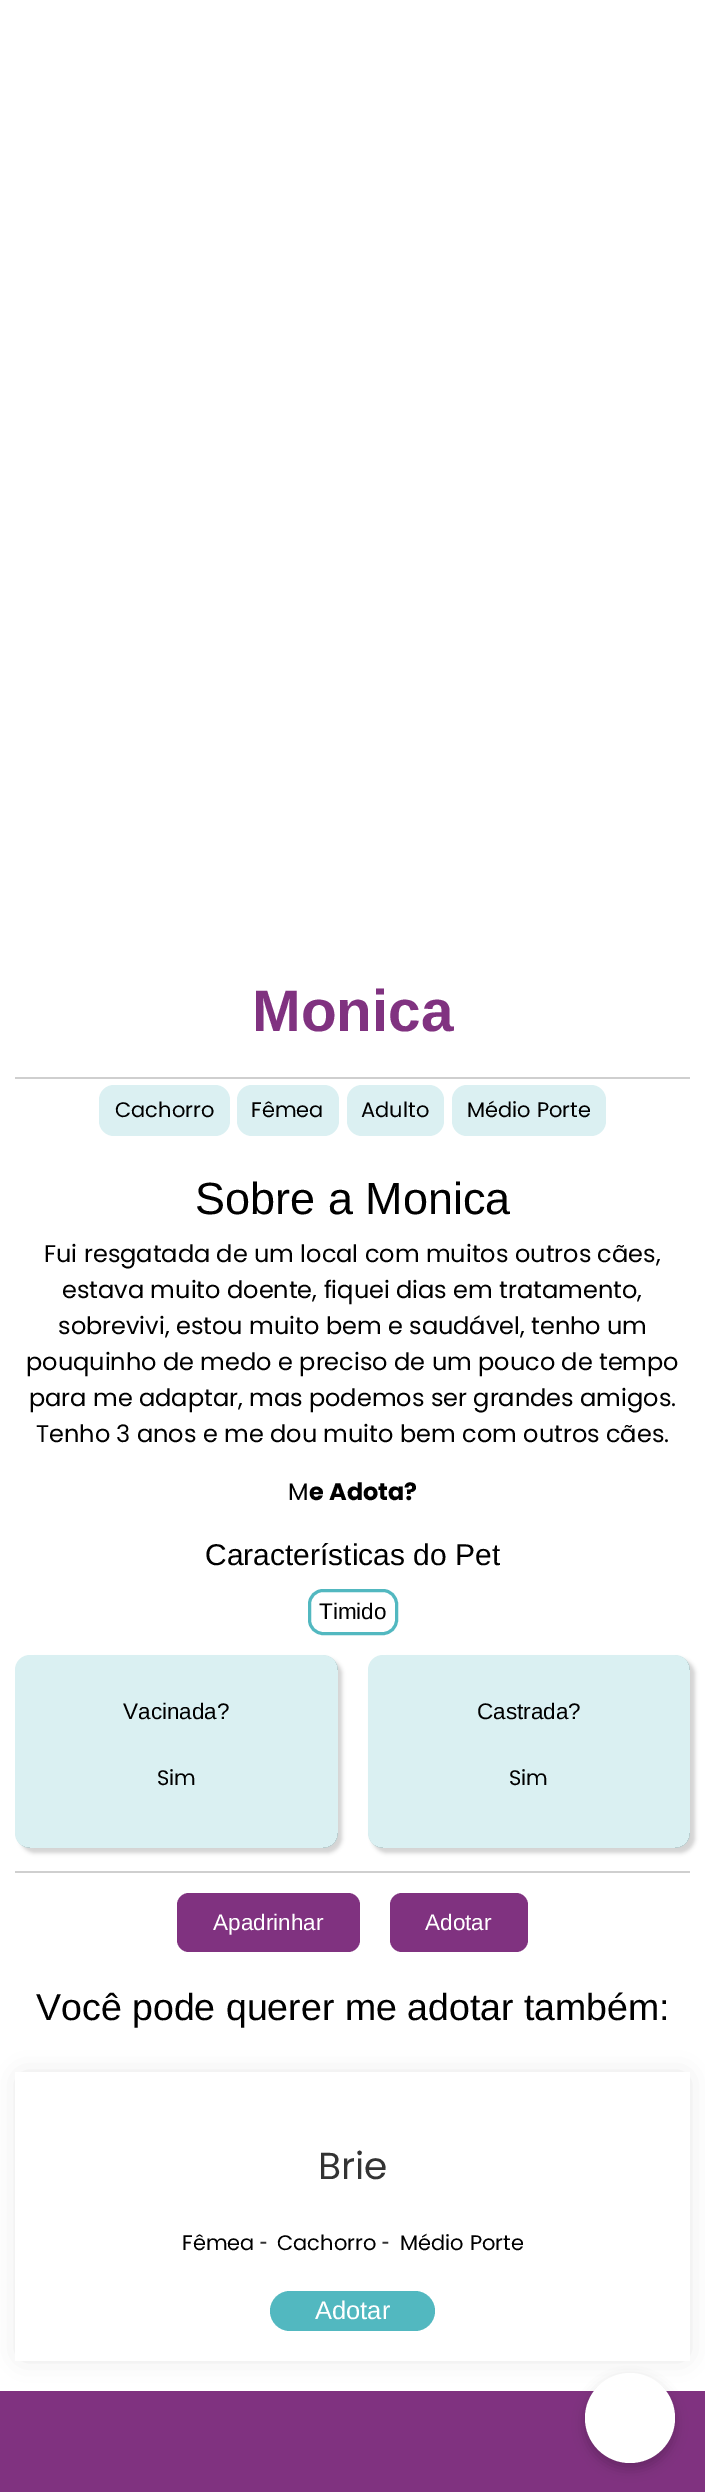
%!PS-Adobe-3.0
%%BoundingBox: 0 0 705 2492
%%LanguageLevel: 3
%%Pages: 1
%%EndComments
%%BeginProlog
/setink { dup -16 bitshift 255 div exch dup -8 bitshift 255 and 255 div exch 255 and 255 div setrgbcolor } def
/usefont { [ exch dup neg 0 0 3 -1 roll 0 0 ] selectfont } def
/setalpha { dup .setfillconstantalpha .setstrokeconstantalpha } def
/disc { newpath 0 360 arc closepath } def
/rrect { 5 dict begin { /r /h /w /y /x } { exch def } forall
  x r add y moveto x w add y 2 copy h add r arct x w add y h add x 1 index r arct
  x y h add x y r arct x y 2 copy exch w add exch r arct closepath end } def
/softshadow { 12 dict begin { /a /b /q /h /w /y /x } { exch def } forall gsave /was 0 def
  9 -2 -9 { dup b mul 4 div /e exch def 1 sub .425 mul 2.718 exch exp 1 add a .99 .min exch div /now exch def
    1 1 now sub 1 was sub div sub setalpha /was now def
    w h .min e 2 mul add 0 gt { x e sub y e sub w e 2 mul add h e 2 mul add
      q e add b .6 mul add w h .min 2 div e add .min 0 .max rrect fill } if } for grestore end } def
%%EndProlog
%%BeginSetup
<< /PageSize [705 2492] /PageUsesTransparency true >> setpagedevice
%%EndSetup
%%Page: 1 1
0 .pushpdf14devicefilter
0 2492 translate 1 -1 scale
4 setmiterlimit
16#FFFFFF setink
0 0 705 2492 rectfill
/LiberationSans-Bold 58.5 usefont
16#803280 setink
252 1031 moveto (Monica) show
16#CFCFCF setink
15 1077 675 2 rectfill
16#DBF0F2 setink
99 1085 131 51 15 rrect fill
/Poppins-Regular 21 usefont
16#000000 setink
115 1117 moveto (Cachorro) show
16#DBF0F2 setink
237 1085 102 51 15 rrect fill
16#000000 setink
251 1117 moveto (Fêmea) show
16#DBF0F2 setink
347 1085 97 51 15 rrect fill
16#000000 setink
361 1117 moveto (Adulto) show
16#DBF0F2 setink
452 1085 154 51 15 rrect fill
16#000000 setink
467 1117 moveto (Médio Porte) show
/LiberationSans-Regular 45 usefont
195 1214 moveto (Sobre a Monica) show
/Poppins-Regular 24 usefont
[
    [(Fui resgatada de um local com muitos outros cães,) 44 1262]
    [(estava muito doente, fiquei dias em tratamento,) 62 1298]
    [(sobrevivi, estou muito bem e saudável, tenho um) 58 1334]
    [(pouquinho de medo e preciso de um pouco de tempo) 26 1370]
    [(para me adaptar, mas podemos ser grandes amigos.) 29 1406]
    [(Tenho 3 anos e me dou muito bem com outros cães.) 36 1442]
    [(M) 288 1500]
] { aload pop moveto show } forall
/Poppins-Bold 24 usefont
309 1500 moveto (e Adota?) show
/LiberationSans-Regular 30 usefont
205 1565 moveto (Características do Pet) show
16#52B8C0 setink
3 setlinewidth
309.5 1590.5 87 43 13.5 rrect stroke
/LiberationSans-Regular 22.5 usefont
16#000000 setink
319 1619 moveto (Timido) show
gsave
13 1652 moveto 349 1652 lineto 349 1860 lineto 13 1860 lineto closepath 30 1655 moveto 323 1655 lineto 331.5 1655 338 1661.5 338 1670 curveto 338 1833 lineto 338 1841.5 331.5 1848 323 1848 curveto 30 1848 lineto 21.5 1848 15 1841.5 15 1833 curveto 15 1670 lineto 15 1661.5 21.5 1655 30 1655 curveto closepath eoclip newpath
20 1659 322 194 15 2 0.17 softshadow
grestore
0.21 setalpha
16#52B8C0 setink
15 1655 323 193 15 rrect fill
1 setalpha
16#000000 setink
123 1719 moveto (Vacinada?) show
/Poppins-Regular 21 usefont
157 1785 moveto (Sim) show
gsave
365 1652 moveto 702 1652 lineto 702 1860 lineto 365 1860 lineto closepath 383 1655 moveto 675 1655 lineto 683.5 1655 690 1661.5 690 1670 curveto 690 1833 lineto 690 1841.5 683.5 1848 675 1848 curveto 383 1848 lineto 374.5 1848 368 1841.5 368 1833 curveto 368 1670 lineto 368 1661.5 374.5 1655 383 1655 curveto closepath eoclip newpath
372 1659 323 194 15 2 0.17 softshadow
grestore
0.21 setalpha
16#52B8C0 setink
368 1655 322 193 15 rrect fill
/LiberationSans-Regular 22.5 usefont
1 setalpha
16#000000 setink
477 1719 moveto (Castrada?) show
/Poppins-Regular 21 usefont
509 1785 moveto (Sim) show
16#CFCFCF setink
15 1871 675 2 rectfill
16#803280 setink
177 1893 183 59 12 rrect fill
/LiberationSans-Regular 22.5 usefont
16#FFFFFF setink
213 1930 moveto (Apadrinhar) show
16#803280 setink
390 1893 138 59 12 rrect fill
16#FFFFFF setink
425 1930 moveto (Adotar) show
/LiberationSans-Regular 37.5 usefont
16#000000 setink
36 2020 moveto (Você pode querer me adotar também:) show
gsave
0 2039 moveto 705 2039 lineto 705 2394 lineto 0 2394 lineto closepath 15 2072 moveto 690 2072 lineto 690 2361 lineto 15 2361 lineto closepath eoclip newpath
23 2079 660 275 0 13 0.15 softshadow
grestore
/Poppins-Regular 37.5 usefont
16#333333 setink
318 2179 moveto (Brie) show
/Poppins-Regular 21 usefont
16#000000 setink
182 2250 moveto (Fêmea) show
/Roboto-Regular 24 usefont
16#333333 setink
260 2250 moveto (-) show
/Poppins-Regular 21 usefont
16#000000 setink
277 2250 moveto (Cachorro) show
/Roboto-Regular 24 usefont
16#333333 setink
382 2250 moveto (-) show
/Poppins-Regular 21 usefont
16#000000 setink
400 2250 moveto (Médio Porte) show
16#52B8C0 setink
270 2291 165 40 20 rrect fill
/LiberationSans-Regular 25.5 usefont
16#FFFFFF setink
315 2319 moveto (Adotar) show
16#803280 setink
0 2391 705 101 rectfill
16#000000 setink
585 2379 90 90 45 6 0.2 softshadow
16#FFFFFF setink
630 2418 45 disc fill
.poppdf14devicefilter showpage
%%EOF
